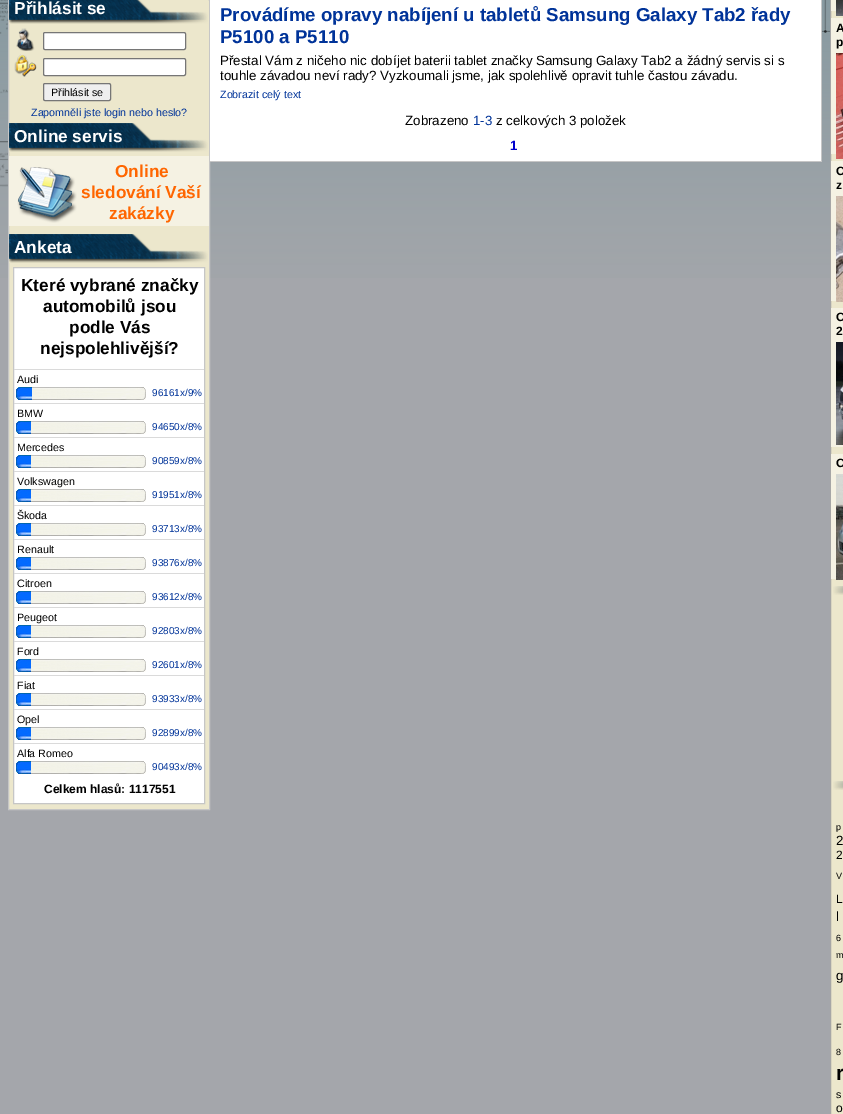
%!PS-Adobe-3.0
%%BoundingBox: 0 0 843 1114
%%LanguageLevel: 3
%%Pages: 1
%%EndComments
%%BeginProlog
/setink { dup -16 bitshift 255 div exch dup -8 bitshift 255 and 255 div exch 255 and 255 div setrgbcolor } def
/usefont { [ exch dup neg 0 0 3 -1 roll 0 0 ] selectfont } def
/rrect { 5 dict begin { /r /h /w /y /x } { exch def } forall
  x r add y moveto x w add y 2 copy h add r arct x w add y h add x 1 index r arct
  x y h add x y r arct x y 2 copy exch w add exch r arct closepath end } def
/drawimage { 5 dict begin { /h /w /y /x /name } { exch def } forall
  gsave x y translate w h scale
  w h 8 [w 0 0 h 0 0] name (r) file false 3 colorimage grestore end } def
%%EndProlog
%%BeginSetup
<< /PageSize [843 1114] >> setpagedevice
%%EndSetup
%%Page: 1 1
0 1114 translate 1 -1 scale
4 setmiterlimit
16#A4A6AB setink
0 0 843 1114 rectfill
(img1.raw) 0 0 830 278 drawimage
(img2.raw) 0 0 8 187 drawimage
(img3.raw) 822 0 8 33 drawimage
16#ECE7CC setink
8.5 -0.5 moveto 209.5 -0.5 lineto 209.5 809.5 lineto 8.5 809.5 lineto closepath gsave fill grestore
16#C6C6C6 setink
stroke
(img4.raw) 9 0 199 24 drawimage
/LiberationSans-Bold 17.25 usefont
16#FFFFFF setink
14 14 moveto (Přihlásit se) show
(img5.raw) 16 28 19 23 drawimage
43.5 32.5 142 17 1.5 rrect gsave fill grestore
16#767676 setink
stroke
(img6.raw) 14 54 23 23 drawimage
16#FFFFFF setink
43.5 58.5 142 17 1.5 rrect gsave fill grestore
16#767676 setink
stroke
16#EFEFEF setink
43.5 83.5 67 17 1.5 rrect gsave fill grestore
16#767676 setink
stroke
/LiberationSans-Regular 10.7 usefont
16#000000 setink
51 96 moveto (Přihlásit se) show
16#003399 setink
31 116 moveto (Zapomněli jste login nebo heslo?) show
(img7.raw) 9 123 199 29 drawimage
/LiberationSans-Bold 17.25 usefont
16#FFFFFF setink
14 142 moveto (Online servis) show
16#F5F2E3 setink
9 156 200 70 rectfill
(img8.raw) 17 167 60 56 drawimage
16#FF6600 setink
[
    [(Online) 115 177]
    [(sledování Vaší) 81 198]
    [(zakázky) 109 219]
] { aload pop moveto show } forall
(img7.raw) 9 234 199 29 drawimage
16#FFFFFF setink
14 253 moveto (Anketa) show
13.5 267.5 moveto 204.5 267.5 lineto 204.5 803.5 lineto 13.5 803.5 lineto closepath gsave fill grestore
16#C6C6C6 setink
stroke
16#000000 setink
[
    [(Které vybrané značky) 21 291]
    [(automobilů jsou) 43 312]
    [(podle Vás) 69 333]
    [(nejspolehlivější?) 40 354]
] { aload pop moveto show } forall
16#DADADA setink
14 369 190 1 rectfill
/LiberationSans-Regular 10.7 usefont
16#000000 setink
17 383 moveto (Audi) show
(img9.raw) 32 387 114 13 drawimage
(img10.raw) 16 387 16 13 drawimage
/LiberationSans-Regular 10 usefont
16#003399 setink
152 396 moveto (96161x/9%) show
16#DADADA setink
14 403 190 1 rectfill
/LiberationSans-Regular 10.7 usefont
16#000000 setink
17 417 moveto (BMW) show
(img11.raw) 31 421 115 13 drawimage
(img12.raw) 16 421 15 13 drawimage
/LiberationSans-Regular 10 usefont
16#003399 setink
152 430 moveto (94650x/8%) show
16#DADADA setink
14 437 190 1 rectfill
/LiberationSans-Regular 10.7 usefont
16#000000 setink
17 451 moveto (Mercedes) show
(img11.raw) 31 455 115 13 drawimage
(img12.raw) 16 455 15 13 drawimage
/LiberationSans-Regular 10 usefont
16#003399 setink
152 464 moveto (90859x/8%) show
16#DADADA setink
14 471 190 1 rectfill
/LiberationSans-Regular 10.7 usefont
16#000000 setink
17 485 moveto (Volkswagen) show
(img11.raw) 31 489 115 13 drawimage
(img12.raw) 16 489 15 13 drawimage
/LiberationSans-Regular 10 usefont
16#003399 setink
152 498 moveto (91951x/8%) show
16#DADADA setink
14 505 190 1 rectfill
/LiberationSans-Regular 10.7 usefont
16#000000 setink
17 519 moveto (Škoda) show
(img11.raw) 31 523 115 13 drawimage
(img12.raw) 16 523 15 13 drawimage
/LiberationSans-Regular 10 usefont
16#003399 setink
152 532 moveto (93713x/8%) show
16#DADADA setink
14 539 190 1 rectfill
/LiberationSans-Regular 10.7 usefont
16#000000 setink
17 553 moveto (Renault) show
(img11.raw) 31 557 115 13 drawimage
(img12.raw) 16 557 15 13 drawimage
/LiberationSans-Regular 10 usefont
16#003399 setink
152 566 moveto (93876x/8%) show
16#DADADA setink
14 573 190 1 rectfill
/LiberationSans-Regular 10.7 usefont
16#000000 setink
17 587 moveto (Citroen) show
(img11.raw) 31 591 115 13 drawimage
(img12.raw) 16 591 15 13 drawimage
/LiberationSans-Regular 10 usefont
16#003399 setink
152 600 moveto (93612x/8%) show
16#DADADA setink
14 607 190 1 rectfill
/LiberationSans-Regular 10.7 usefont
16#000000 setink
17 621 moveto (Peugeot) show
(img11.raw) 31 625 115 13 drawimage
(img12.raw) 16 625 15 13 drawimage
/LiberationSans-Regular 10 usefont
16#003399 setink
152 634 moveto (92803x/8%) show
16#DADADA setink
14 641 190 1 rectfill
/LiberationSans-Regular 10.7 usefont
16#000000 setink
17 655 moveto (Ford) show
(img11.raw) 31 659 115 13 drawimage
(img12.raw) 16 659 15 13 drawimage
/LiberationSans-Regular 10 usefont
16#003399 setink
152 668 moveto (92601x/8%) show
16#DADADA setink
14 675 190 1 rectfill
/LiberationSans-Regular 10.7 usefont
16#000000 setink
17 689 moveto (Fiat) show
(img11.raw) 31 693 115 13 drawimage
(img12.raw) 16 693 15 13 drawimage
/LiberationSans-Regular 10 usefont
16#003399 setink
152 702 moveto (93933x/8%) show
16#DADADA setink
14 709 190 1 rectfill
/LiberationSans-Regular 10.7 usefont
16#000000 setink
17 723 moveto (Opel) show
(img11.raw) 31 727 115 13 drawimage
(img12.raw) 16 727 15 13 drawimage
/LiberationSans-Regular 10 usefont
16#003399 setink
152 736 moveto (92899x/8%) show
16#DADADA setink
14 743 190 1 rectfill
/LiberationSans-Regular 10.7 usefont
16#000000 setink
17 757 moveto (Alfa Romeo) show
(img11.raw) 31 761 115 13 drawimage
(img12.raw) 16 761 15 13 drawimage
/LiberationSans-Regular 10 usefont
16#003399 setink
152 770 moveto (90493x/8%) show
/LiberationSans-Bold 12 usefont
16#000000 setink
44 793 moveto (Celkem hlasů: 1117551) show
[
    [210 0 611 161 16#FFFFFF]
    [821 0 1 162 16#C6C6C6]
    [210 161 612 1 16#C6C6C6]
] { aload pop setink rectfill } forall
/LiberationSans-Bold 18.7 usefont
16#003399 setink
220 21 moveto (Provádíme opravy nabíjení u tabletů Samsung Galaxy Tab2 řady) show
220 43 moveto (P5100 a P5110) show
/LiberationSans-Regular 13.35 usefont
16#000000 setink
220 65 moveto (Přestal Vám z ničeho nic dobíjet baterii tablet značky Samsung Galaxy Tab2 a žádný servis si s) show
220 80 moveto (touhle závadou neví rady? Vyzkoumali jsme, jak spolehlivě opravit tuhle častou závadu.) show
/LiberationSans-Regular 10.7 usefont
16#003399 setink
220 98 moveto (Zobrazit celý text) show
/LiberationSans-Regular 13.35 usefont
16#000000 setink
405 125 moveto (Zobrazeno) show
16#003399 setink
473 125 moveto (1-3) show
16#000000 setink
496 125 moveto (z celkových 3 položek) show
/LiberationSans-Bold 13.35 usefont
16#0000CD setink
510 150 moveto (1) show
16#ECE7CC setink
831 11 12 1103 rectfill
16#A6A6A6 setink
830.5 -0.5 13 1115 rectstroke
16#F5F2E3 setink
831 0 5 11 rectfill
(img13.raw) 836 0 7 16 drawimage
831 18 12 136 rectfill
/LiberationSans-Bold 12 usefont
16#000000 setink
836 32 moveto (A) show
836 46 moveto (p) show
(img14.raw) 836 53 7 106 drawimage
16#F5F2E3 setink
831 161 12 140 rectfill
16#000000 setink
836 175 moveto (O) show
836 189 moveto (z) show
(img15.raw) 836 196 7 106 drawimage
16#F5F2E3 setink
831 308 12 139 rectfill
16#000000 setink
836 321 moveto (O) show
836 335 moveto (2) show
(img16.raw) 836 342 7 103 drawimage
16#F5F2E3 setink
831 454 12 125 rectfill
16#000000 setink
836 467 moveto (O) show
(img17.raw) 836 474 7 106 drawimage
(img18.raw) 833 586 10 9 drawimage
(img18.raw) 833 781 10 9 drawimage
/LiberationSans-Regular 9 usefont
836 830 moveto (p) show
/LiberationSans-Regular 13.35 usefont
836 845 moveto (2) show
/LiberationSans-Regular 12 usefont
836 859 moveto (2) show
/LiberationSans-Regular 9 usefont
836 879 moveto (V) show
/LiberationSans-Regular 12 usefont
836 903 moveto (L) show
/LiberationSans-Regular 13.35 usefont
836 921 moveto (l) show
/LiberationSans-Regular 9 usefont
836 941 moveto (6) show
836 958 moveto (m) show
/LiberationSans-Regular 13.35 usefont
836 980 moveto (g) show
/LiberationSans-Regular 9 usefont
836 1030 moveto (F) show
836 1055 moveto (8) show
/LiberationSans-Bold 21 usefont
836 1080 moveto (r) show
/LiberationSans-Regular 10.7 usefont
836 1098 moveto (s) show
/LiberationSans-Regular 12 usefont
836 1112 moveto (o) show
showpage
%%EOF
